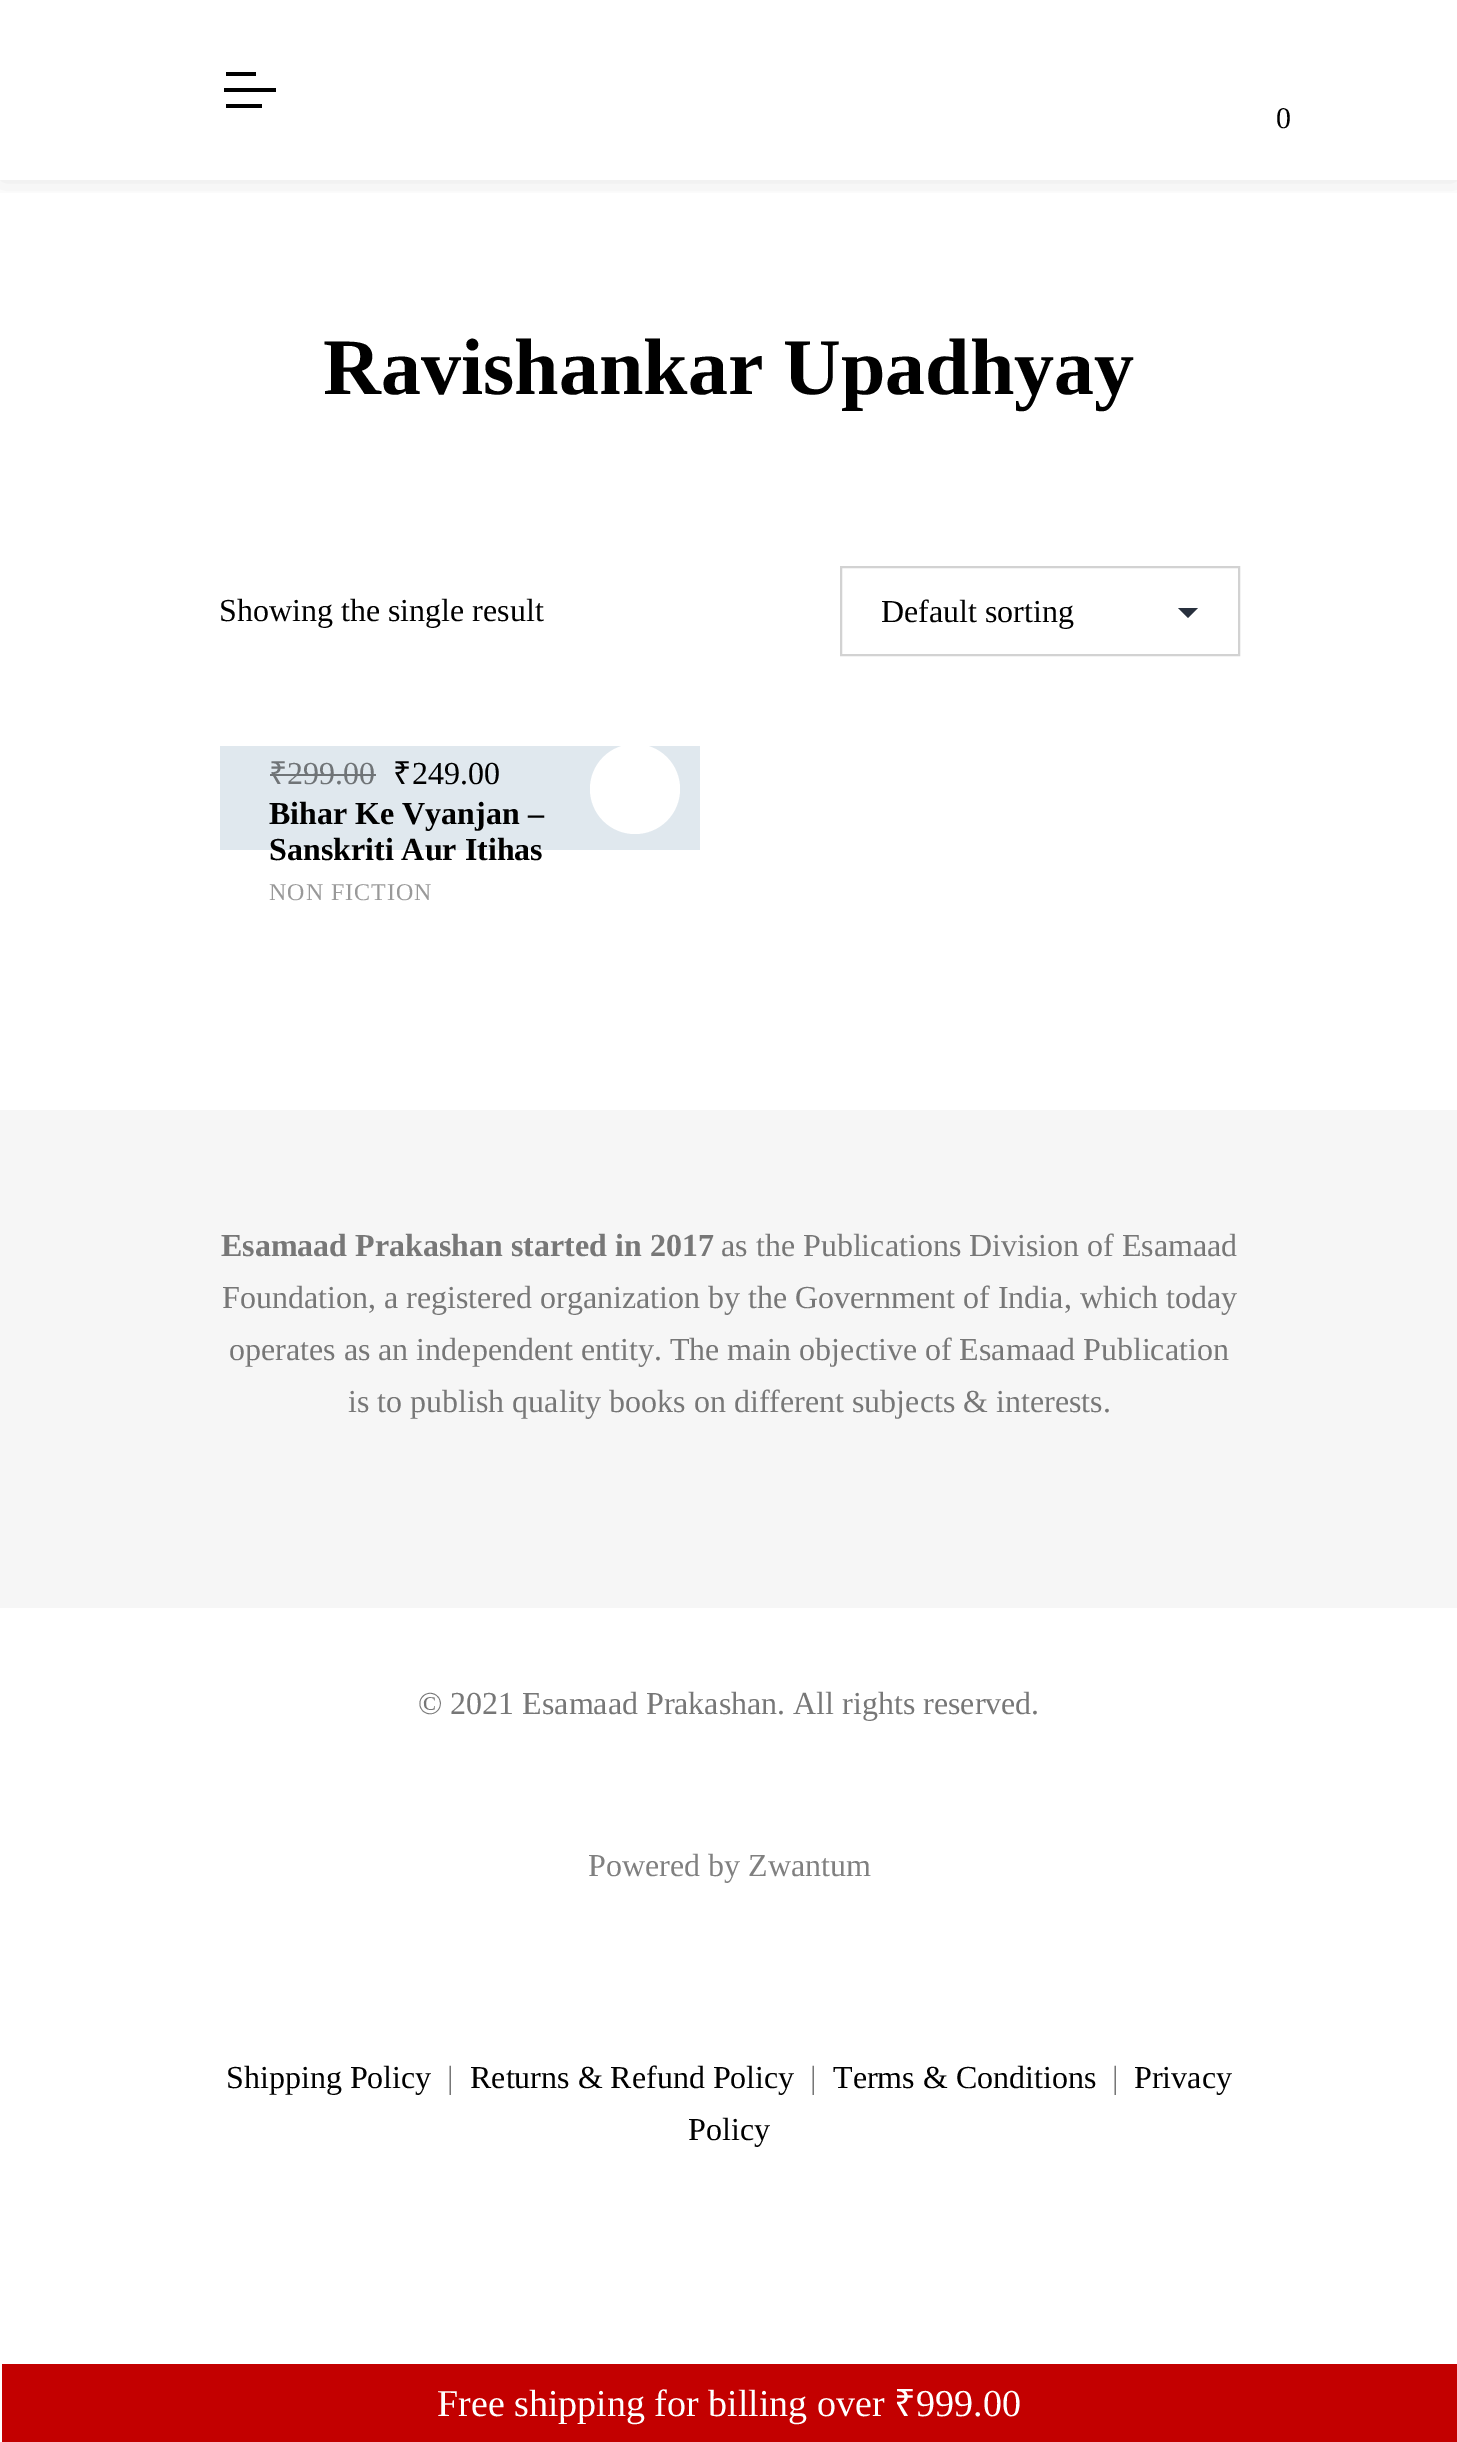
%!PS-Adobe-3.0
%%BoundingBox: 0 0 1457 2442
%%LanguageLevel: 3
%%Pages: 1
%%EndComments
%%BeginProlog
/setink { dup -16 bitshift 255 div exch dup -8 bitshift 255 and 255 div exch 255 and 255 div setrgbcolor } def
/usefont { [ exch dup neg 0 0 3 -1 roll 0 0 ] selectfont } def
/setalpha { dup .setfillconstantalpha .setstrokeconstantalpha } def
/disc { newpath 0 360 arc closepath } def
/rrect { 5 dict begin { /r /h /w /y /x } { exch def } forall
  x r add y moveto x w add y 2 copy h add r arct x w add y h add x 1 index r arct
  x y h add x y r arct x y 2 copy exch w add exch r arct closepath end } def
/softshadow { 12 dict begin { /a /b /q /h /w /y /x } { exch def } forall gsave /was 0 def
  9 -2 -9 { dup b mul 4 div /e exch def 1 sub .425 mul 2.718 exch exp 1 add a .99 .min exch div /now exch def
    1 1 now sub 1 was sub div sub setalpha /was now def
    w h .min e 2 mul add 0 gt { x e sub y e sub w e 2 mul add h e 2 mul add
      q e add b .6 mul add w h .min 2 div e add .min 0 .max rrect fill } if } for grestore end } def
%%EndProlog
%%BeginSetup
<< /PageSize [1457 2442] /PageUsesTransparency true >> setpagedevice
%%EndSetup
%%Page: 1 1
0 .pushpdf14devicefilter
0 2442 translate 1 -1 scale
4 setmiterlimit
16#FFFFFF setink
0 0 1457 2442 rectfill
gsave
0 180 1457 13 rectclip
16#000000 setink
0 0 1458 180 0 15 0.1 softshadow
grestore
[
    [224 88 52 4 16#000000]
    [226 72 30 4 16#000000]
    [226 104 36 4 16#000000]
] { aload pop setink rectfill } forall
/LiberationSerif-Regular 30 usefont
1276 128 moveto (0) show
/LiberationSerif-Bold 80 usefont
323 394 moveto (Ravishankar Upadhyay) show
/LiberationSerif-Regular 32 usefont
219 621 moveto (Showing the single result) show
16#28303D setink
1178 608 moveto 1198 608 lineto 1188 618 lineto closepath fill
16#D2D2D2 setink
2 setlinewidth
841 567 398 88 rectstroke
16#000000 setink
881 622 moveto (Default sorting) show
16#E0E8EE setink
220 746 480 104 rectfill
16#FFFFFF setink
635 789 45 disc fill
/NotoSans-Regular 32 usefont
16#707477 setink
269 784 moveto (₹) show
/LiberationSerif-Regular 32 usefont
287 784 moveto (299.00) show
270 774 18 2 rectfill
288 774 88 2 rectfill
/NotoSans-Regular 32 usefont
16#000000 setink
393 784 moveto (₹) show
/LiberationSerif-Regular 32 usefont
412 784 moveto (249.00) show
/LiberationSerif-Bold 32 usefont
269 824 moveto (Bihar Ke Vyanjan –) show
269 860 moveto (Sanskriti Aur Itihas) show
/LiberationSerif-Regular 24 usefont
16#999999 setink
269 900 moveto 1 0 (NON FICTION) ashow
16#F6F6F6 setink
0 1110 1457 498 rectfill
/LiberationSerif-Bold 32 usefont
16#777777 setink
221 1256 moveto (Esamaad Prakashan started in 2017) show
/LiberationSerif-Regular 32 usefont
[
    [(as the Publications Division of Esamaad) 721 1256]
    [(Foundation, a registered organization by the Government of India, which today) 222 1308]
    [(operates as an independent entity. The main objective of Esamaad Publication) 229 1360]
    [(is to publish quality books on different subjects & interests.) 348 1412]
    [(© 2021 Esamaad Prakashan. All rights reserved.) 418 1714]
] { aload pop moveto show } forall
16#808080 setink
588 1876 moveto (Powered by Zwantum) show
16#000000 setink
226 2088 moveto (Shipping Policy) show
16#777777 setink
447 2088 moveto (|) show
16#000000 setink
470 2088 moveto (Returns & Refund Policy) show
16#777777 setink
810 2088 moveto (|) show
16#000000 setink
833 2088 moveto (Terms & Conditions) show
16#777777 setink
1112 2088 moveto (|) show
16#000000 setink
1134 2088 moveto (Privacy) show
688 2140 moveto (Policy) show
16#C30000 setink
2 2364 1455 78 rectfill
/LiberationSerif-Regular 38 usefont
16#FFFFFF setink
437 2416 moveto (Free shipping for billing over) show
/NotoSans-Regular 38 usefont
894 2416 moveto (₹) show
/LiberationSerif-Regular 38 usefont
916 2416 moveto (999.00) show
.poppdf14devicefilter showpage
%%EOF
